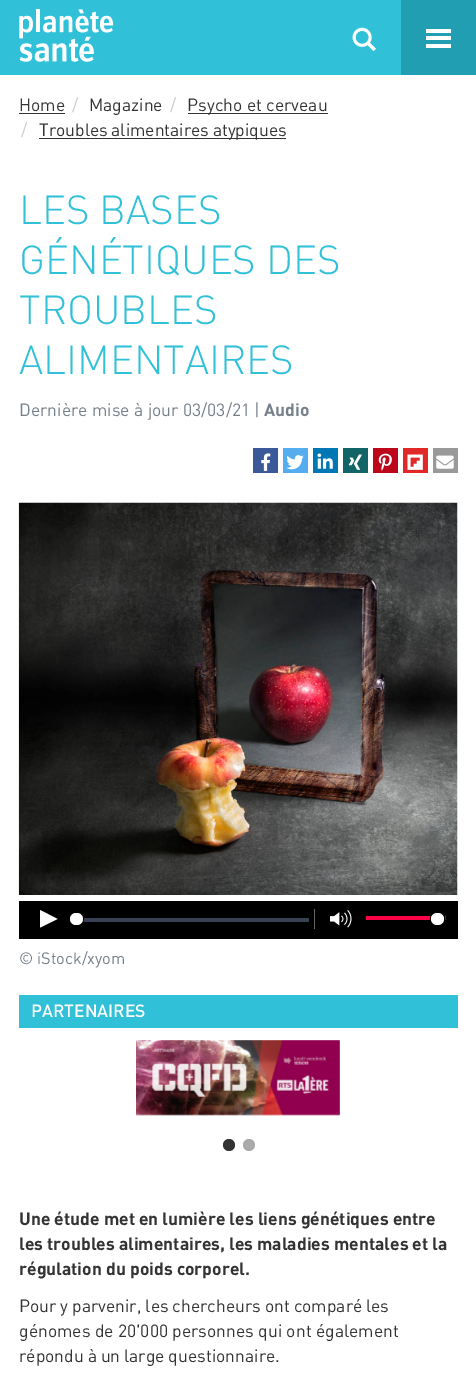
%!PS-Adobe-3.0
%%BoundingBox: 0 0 476 1380
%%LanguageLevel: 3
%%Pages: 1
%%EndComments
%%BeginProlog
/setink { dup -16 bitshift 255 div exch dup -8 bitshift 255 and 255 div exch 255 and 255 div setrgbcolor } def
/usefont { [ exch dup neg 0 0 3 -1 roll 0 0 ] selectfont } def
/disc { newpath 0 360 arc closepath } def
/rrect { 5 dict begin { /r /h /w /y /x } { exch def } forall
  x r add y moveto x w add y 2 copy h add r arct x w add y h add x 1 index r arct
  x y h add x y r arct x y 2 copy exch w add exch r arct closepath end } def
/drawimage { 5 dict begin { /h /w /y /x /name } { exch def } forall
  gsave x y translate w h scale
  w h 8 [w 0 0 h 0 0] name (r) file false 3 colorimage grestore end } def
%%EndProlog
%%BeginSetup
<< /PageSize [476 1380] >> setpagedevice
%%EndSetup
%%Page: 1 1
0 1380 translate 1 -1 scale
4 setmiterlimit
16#FFFFFF setink
0 0 476 1380 rectfill
16#30C0D8 setink
0 0 401 75 rectfill
(img1.raw) 19 9 95 53 drawimage
(img2.raw) 352 27 24 25 drawimage
[
    [401 0 75 75 16#229EB3]
    [426 36 25 4 16#FFFFFF]
    [426 29 25 4 16#FFFFFF]
    [426 44 25 4 16#FFFFFF]
] { aload pop setink rectfill } forall
/DIN-Regular 17.5 usefont
16#333333 setink
19 111 moveto (Home) show
19 113 46 1 rectfill
16#CCCCCC setink
72 111 moveto (/) show
16#333333 setink
89 111 moveto (Magazine) show
16#CCCCCC setink
170 111 moveto (/) show
16#333333 setink
188 113 140 1 rectfill
187 111 moveto (Psycho et cerveau) show
16#CCCCCC setink
21 136 moveto (/) show
16#333333 setink
39 138 247 1 rectfill
39 136 moveto -1 0 32 (Troubles alimentaires atypiques) widthshow
/DIN-Light 40 usefont
16#30C0D8 setink
[
    [(LES BASES) 19 224]
    [(GÉNÉTIQUES DES) 19 274]
    [(TROUBLES) 19 324]
    [(ALIMENTAIRES) 19 374]
] { aload pop moveto show } forall
/DIN-Regular 17.5 usefont
16#76808A setink
19 416 moveto (Dernière mise à jour 03/03/21 |) show
/DIN-Bold 17.5 usefont
264 416 moveto (Audio) show
16#3B5998 setink
253 448 25 25 rectfill
(img3.raw) 261 453 10 18 drawimage
16#55ACEE setink
283 448 25 25 rectfill
(img4.raw) 286 455 18 15 drawimage
16#0077B5 setink
313 448 25 25 rectfill
(img5.raw) 317 453 16 16 drawimage
16#126567 setink
343 448 25 25 rectfill
(img6.raw) 348 454 14 16 drawimage
16#BD081C setink
373 448 25 25 rectfill
(img7.raw) 378 453 14 18 drawimage
16#E12828 setink
403 448 25 25 rectfill
(img8.raw) 407 454 16 16 drawimage
16#999999 setink
433 448 25 25 rectfill
(img9.raw) 436 455 18 14 drawimage
(img10.raw) 18 502 440 393 drawimage
16#000000 setink
19 901 439 38 rectfill
16#FFFFFF setink
57.5 919 moveto 40 927.5 lineto 40 910 lineto closepath fill
16#384154 setink
76 918 233 4 rectfill
16#000000 setink
76.5 918.5 7 disc stroke
16#FFFFFF setink
70 913 13 12 6 rrect fill
16#666666 setink
314 909 1 20 rectfill
(img11.raw) 330 910 22 18 drawimage
16#FF0046 setink
366 916 73 4 rectfill
16#384154 setink
443 916 3 4 rectfill
16#000000 setink
437.5 918.5 7 disc stroke
16#FFFFFF setink
431 913 13 12 6 rrect fill
/DIN-Regular 16.25 usefont
16#76808A setink
19 964 moveto (© iStock/xyom) show
16#30C0D8 setink
19 995 439 33 rectfill
/DIN-Medium 17.5 usefont
16#FFFFFF setink
31 1017 moveto (PARTENAIRES) show
(img12.raw) 136 1040 204 76 drawimage
16#333333 setink
229 1145 6 disc fill
16#AAAAAA setink
249 1145 6 disc fill
/DIN-Bold 17.5 usefont
16#333333 setink
[
    [(Une étude met en lumière les liens génétiques entre) 19 1225]
    [(les troubles alimentaires, les maladies mentales et la) 19 1250]
    [(régulation du poids corporel.) 19 1275]
] { aload pop moveto show } forall
/DIN-Regular 17.5 usefont
19 1312 moveto -0.5 0 32 (Pour y parvenir, les chercheurs ont comparé les) widthshow
19 1337 moveto (génomes de 20'000 personnes qui ont également) show
19 1362 moveto -0.5 0 32 (répondu à un large questionnaire.) widthshow
showpage
%%EOF
